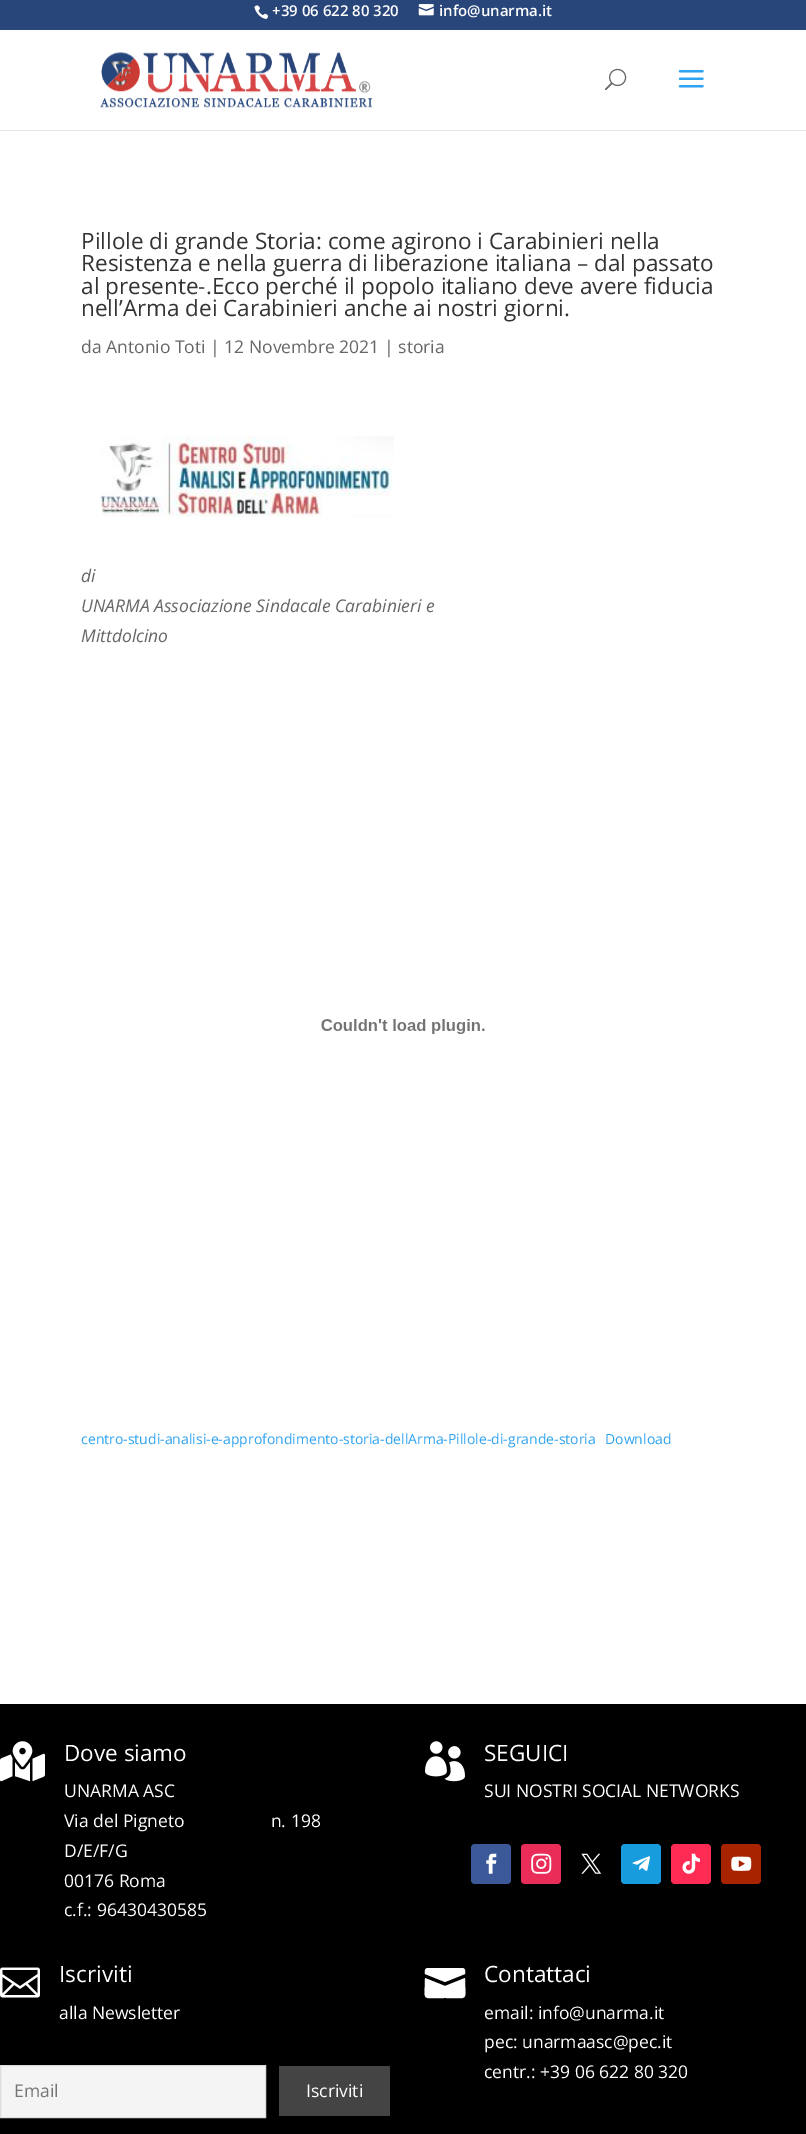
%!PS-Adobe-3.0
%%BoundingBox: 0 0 806 2134
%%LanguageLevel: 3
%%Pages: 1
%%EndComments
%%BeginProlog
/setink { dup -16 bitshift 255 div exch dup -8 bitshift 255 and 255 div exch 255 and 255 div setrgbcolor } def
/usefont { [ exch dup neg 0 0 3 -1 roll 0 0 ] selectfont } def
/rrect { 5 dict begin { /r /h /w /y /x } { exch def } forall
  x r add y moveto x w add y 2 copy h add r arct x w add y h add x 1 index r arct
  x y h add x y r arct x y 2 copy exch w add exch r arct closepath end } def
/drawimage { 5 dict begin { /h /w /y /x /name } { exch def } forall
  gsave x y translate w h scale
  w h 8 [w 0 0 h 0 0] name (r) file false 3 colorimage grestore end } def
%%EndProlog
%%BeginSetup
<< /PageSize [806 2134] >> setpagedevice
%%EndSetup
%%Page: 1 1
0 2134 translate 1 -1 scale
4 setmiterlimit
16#FFFFFF setink
0 0 806 2134 rectfill
16#29467B setink
0 0 806 30 rectfill
(img1.raw) 254 5 15 14 drawimage
/OpenSans-SemiBold 15 usefont
16#FFFFFF setink
272 16 moveto (+39 06 622 80 320) show
(img2.raw) 418 4 16 12 drawimage
439 16 moveto (info@unarma.it) show
16#E6E6E6 setink
0 130 806 1 rectfill
(img3.raw) 100 52 273 56 drawimage
(img4.raw) 605 68 22 23 drawimage
(img5.raw) 678 70 26 18 drawimage
/OpenSans-Regular 22.5 usefont
16#333333 setink
[
    [(Pillole di grande Storia: come agirono i Carabinieri nella) 81 249]
    [(Resistenza e nella guerra di liberazione italiana – dal passato) 81 271]
    [(al presente-.Ecco perché il popolo italiano deve avere fiducia) 81 294]
    [(nell’Arma dei Carabinieri anche ai nostri giorni.) 81 316]
] { aload pop moveto show } forall
/OpenSans-Regular 17.5 usefont
16#666666 setink
81 353 moveto (da Antonio Toti | 12 Novembre 2021 | storia) show
(img6.raw) 100 436 294 81 drawimage
/OpenSans-Italic 17.5 usefont
[
    [(di) 81 582]
    [(UNARMA Associazione Sindacale Carabinieri e) 81 612]
    [(Mittdolcino) 81 642]
] { aload pop moveto show } forall
(img7.raw) 321 1019 164 15 drawimage
/OpenSans-Regular 14 usefont
16#2EA3F2 setink
81 1444 moveto (centro-studi-analisi-e-approfondimento-storia-dellArma-Pillole-di-grande-storia) show
605 1444 moveto (Download) show
16#000000 setink
0 1704 806 430 rectfill
(img8.raw) 0 1741 45 41 drawimage
/OpenSans-Regular 22.5 usefont
16#FFFFFF setink
64 1761 moveto (Dove siamo) show
/OpenSans-Regular 17.5 usefont
[
    [(UNARMA ASC) 64 1797]
    [(Via del Pigneto                   n. 198) 64 1827]
    [(D/E/F/G) 64 1857]
    [(00176 Roma) 64 1887]
    [(c.f.: 96430430585) 64 1916]
] { aload pop moveto show } forall
(img9.raw) 425 1741 40 41 drawimage
/OpenSans-Regular 22.5 usefont
484 1761 moveto (SEGUICI) show
/OpenSans-Regular 17.5 usefont
484 1797 moveto (SUI NOSTRI SOCIAL NETWORKS) show
16#3B5998 setink
471 1844 40 40 4 rrect fill
(img10.raw) 486 1853 11 21 drawimage
16#EA2C59 setink
521 1844 40 40 4 rrect fill
(img11.raw) 531 1853 21 21 drawimage
(img12.raw) 581 1853 21 21 drawimage
16#179CDE setink
621 1844 40 40 4 rrect fill
(img13.raw) 632 1856 18 15 drawimage
16#FE2C55 setink
671 1844 40 40 4 rrect fill
(img14.raw) 682 1853 18 21 drawimage
16#A82400 setink
721 1844 40 40 4 rrect fill
(img15.raw) 731 1856 21 15 drawimage
(img16.raw) 0 1967 40 31 drawimage
/OpenSans-Regular 22.5 usefont
16#FFFFFF setink
59 1982 moveto (Iscriviti) show
/OpenSans-Regular 17.5 usefont
59 2019 moveto (alla Newsletter) show
16#F4F4F4 setink
0.5 2065.5 moveto 265.5 2065.5 lineto 265.5 2117.5 lineto 0.5 2117.5 lineto closepath gsave fill grestore
16#DDDDDD setink
stroke
16#757575 setink
14 2097 moveto (Email) show
16#444444 setink
279 2066 111 50 rectfill
16#FFFFFF setink
306 2097 moveto (Iscriviti) show
462 1968 moveto 428 1968 lineto 424 1968 425 1972 425 1974 curveto 445 1982 lineto 465 1974 lineto 465 1972 466 1968 462 1968 curveto closepath 425 1978 moveto 425 2002 420 1998 445 1998 curveto 470 1998 465 2002 465 1978 curveto 445 1986 lineto closepath fill
/OpenSans-Regular 22.5 usefont
484 1982 moveto (Contattaci) show
/OpenSans-Regular 17.5 usefont
[
    [(email: info@unarma.it) 484 2019]
    [(pec: unarmaasc@pec.it) 484 2048]
    [(centr.: +39 06 622 80 320) 484 2078]
] { aload pop moveto show } forall
showpage
%%EOF
